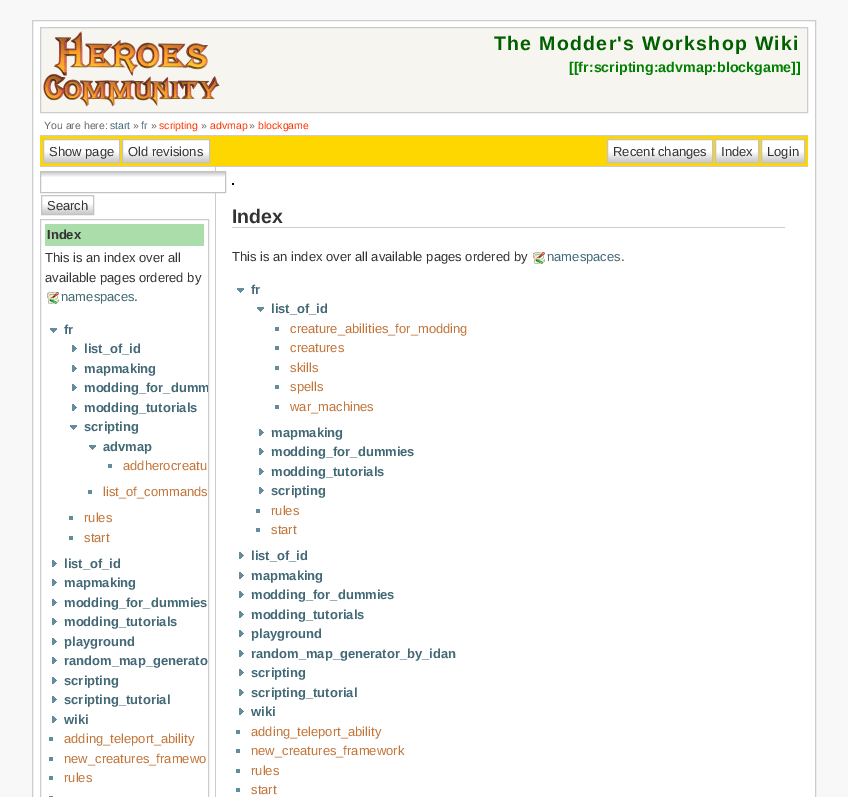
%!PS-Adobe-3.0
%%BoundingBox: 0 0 848 797
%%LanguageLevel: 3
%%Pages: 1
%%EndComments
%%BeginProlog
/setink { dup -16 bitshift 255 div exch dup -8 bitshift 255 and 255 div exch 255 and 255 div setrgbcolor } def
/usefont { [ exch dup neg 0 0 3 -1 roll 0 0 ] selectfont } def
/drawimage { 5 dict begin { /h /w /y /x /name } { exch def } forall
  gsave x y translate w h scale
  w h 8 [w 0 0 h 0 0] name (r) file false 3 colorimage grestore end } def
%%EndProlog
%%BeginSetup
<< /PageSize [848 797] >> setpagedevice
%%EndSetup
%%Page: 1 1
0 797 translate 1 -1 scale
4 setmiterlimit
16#F8F8F8 setink
0 0 848 797 rectfill
16#FFFFFF setink
32.5 20.5 moveto 815.5 20.5 lineto 815.5 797.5 lineto 32.5 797.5 lineto closepath gsave fill grestore
16#CCCCCC setink
stroke
16#F7F5F0 setink
40.5 27.5 moveto 807.5 27.5 lineto 807.5 112.5 lineto 40.5 112.5 lineto closepath gsave fill grestore
16#CCCCCC setink
stroke
(img1.raw) 43 31 177 76 drawimage
/LiberationSans-Bold 19.5 usefont
16#006000 setink
494 50 moveto 1.3 0 (The Modder's Workshop Wiki) ashow
/LiberationSans-Bold 14.25 usefont
16#008000 setink
569 72 moveto ([[fr:scripting:advmap:blockgame]]) show
/LiberationSans-Regular 10.5 usefont
16#666666 setink
44 129 moveto (You are here:) show
16#436976 setink
110 129 moveto (start) show
16#666666 setink
133 129 moveto (») show
16#436976 setink
141 129 moveto (fr) show
16#666666 setink
151 129 moveto (») show
16#FF3300 setink
159 129 moveto (scripting) show
16#666666 setink
201 129 moveto (») show
16#FF3300 setink
210 129 moveto (advmap) show
16#666666 setink
249 129 moveto (») show
16#FF3300 setink
258 129 moveto (blockgame) show
[
    [40 136 768 30 16#FFD700]
    [40 135 768 1 16#CCCCCC]
    [40 166 768 1 16#CCCCCC]
    [44 140 75 21 16#FFFFFF]
] { aload pop setink rectfill } forall
(img2.raw) 44 152 75 10 drawimage
16#C3C3C3 setink
43.5 139.5 76 23 rectstroke
/LiberationSans-Regular 13 usefont
16#333333 setink
49 156 moveto (Show page) show
16#FFFFFF setink
123 140 86 21 rectfill
(img3.raw) 123 152 86 10 drawimage
16#C3C3C3 setink
122.5 139.5 87 23 rectstroke
16#333333 setink
128 156 moveto (Old revisions) show
16#FFFFFF setink
608 140 104 21 rectfill
(img4.raw) 608 152 104 10 drawimage
16#C3C3C3 setink
607.5 139.5 105 23 rectstroke
16#333333 setink
613 156 moveto (Recent changes) show
16#FFFFFF setink
716 140 42 21 rectfill
(img5.raw) 716 152 42 10 drawimage
16#C3C3C3 setink
715.5 139.5 43 23 rectstroke
16#333333 setink
721 156 moveto (Index) show
16#FFFFFF setink
762 140 42 21 rectfill
(img5.raw) 762 152 42 10 drawimage
16#C3C3C3 setink
761.5 139.5 43 23 rectstroke
16#333333 setink
767 156 moveto (Login) show
16#CCCCCC setink
215 167 1 630 rectfill
16#FFFFFF setink
215 172 1 20 rectfill
(img6.raw) 41 172 184 5 drawimage
16#C3C3C3 setink
40.5 171.5 185 21 rectstroke
(img7.raw) 42 204 51 10 drawimage
41.5 195.5 52 19 rectstroke
16#333333 setink
47 210 moveto (Search) show
16#CCCCCC setink
40.5 219.5 168 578 rectstroke
16#AADDAA setink
45 224 159 22 rectfill
/LiberationSans-Bold 13 usefont
16#333333 setink
47 239 moveto (Index) show
/LiberationSans-Regular 13 usefont
45 262 moveto (This is an index over all) show
45 282 moveto (available pages ordered by) show
(img8.raw) 47 292 12 12 drawimage
16#436976 setink
61 301 moveto (namespaces) show
16#333333 setink
134 301 moveto (.) show
(img9.raw) 50 328 7 5 drawimage
/LiberationSans-Bold 13 usefont
16#436976 setink
64 334 moveto (fr) show
(img10.raw) 72 345 5 7 drawimage
84 353 moveto (list_of_id) show
(img10.raw) 72 365 5 7 drawimage
84 373 moveto (mapmaking) show
(img10.raw) 72 384 5 7 drawimage
gsave
41 220 167 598 rectclip
84 392 moveto (modding_for_dumm) show
grestore
(img10.raw) 72 404 5 7 drawimage
84 412 moveto (modding_tutorials) show
(img9.raw) 70 425 7 5 drawimage
84 431 moveto (scripting) show
(img9.raw) 89 445 7 5 drawimage
103 451 moveto (advmap) show
16#638C9C setink
108 464 4 4 rectfill
/LiberationSans-Regular 13 usefont
16#C37439 setink
123 470 moveto (addherocreatu) show
16#638C9C setink
88 490 4 4 rectfill
16#C37439 setink
103 496 moveto (list_of_commands) show
16#638C9C setink
69 516 4 4 rectfill
16#C37439 setink
84 522 moveto (rules) show
16#638C9C setink
69 536 4 4 rectfill
16#C37439 setink
84 542 moveto (start) show
(img10.raw) 52 560 5 7 drawimage
/LiberationSans-Bold 13 usefont
16#436976 setink
64 568 moveto (list_of_id) show
(img10.raw) 52 579 5 7 drawimage
64 587 moveto (mapmaking) show
(img10.raw) 52 599 5 7 drawimage
64 607 moveto (modding_for_dummies) show
(img10.raw) 52 618 5 7 drawimage
64 626 moveto (modding_tutorials) show
(img10.raw) 52 638 5 7 drawimage
64 646 moveto (playground) show
(img10.raw) 52 657 5 7 drawimage
64 665 moveto (random_map_generato) show
(img10.raw) 52 677 5 7 drawimage
64 685 moveto (scripting) show
(img10.raw) 52 696 5 7 drawimage
64 704 moveto (scripting_tutorial) show
(img10.raw) 52 716 5 7 drawimage
64 724 moveto (wiki) show
16#638C9C setink
49 737 4 4 rectfill
/LiberationSans-Regular 13 usefont
16#C37439 setink
64 743 moveto (adding_teleport_ability) show
16#638C9C setink
49 757 4 4 rectfill
16#C37439 setink
64 763 moveto (new_creatures_framewo) show
16#638C9C setink
49 776 4 4 rectfill
16#C37439 setink
64 782 moveto (rules) show
[
    [49 796 4 1 16#638C9C]
    [232 183 2 2 16#000000]
    [232 227 553 1 16#CCCCCC]
] { aload pop setink rectfill } forall
/LiberationSans-Bold 19.5 usefont
16#333333 setink
232 223 moveto (Index) show
/LiberationSans-Regular 13 usefont
232 261 moveto (This is an index over all available pages ordered by) show
(img8.raw) 533 252 12 12 drawimage
16#436976 setink
547 261 moveto (namespaces) show
16#333333 setink
621 261 moveto (.) show
(img9.raw) 237 288 7 5 drawimage
/LiberationSans-Bold 13 usefont
16#436976 setink
251 294 moveto (fr) show
(img9.raw) 257 307 7 5 drawimage
271 313 moveto (list_of_id) show
16#638C9C setink
275 327 4 4 rectfill
/LiberationSans-Regular 13 usefont
16#C37439 setink
290 333 moveto (creature_abilities_for_modding) show
16#638C9C setink
275 346 4 4 rectfill
16#C37439 setink
290 352 moveto (creatures) show
16#638C9C setink
275 366 4 4 rectfill
16#C37439 setink
290 372 moveto (skills) show
16#638C9C setink
275 385 4 4 rectfill
16#C37439 setink
290 391 moveto (spells) show
16#638C9C setink
275 405 4 4 rectfill
16#C37439 setink
290 411 moveto (war_machines) show
(img10.raw) 259 429 5 7 drawimage
/LiberationSans-Bold 13 usefont
16#436976 setink
271 437 moveto (mapmaking) show
(img10.raw) 259 448 5 7 drawimage
271 456 moveto (modding_for_dummies) show
(img10.raw) 259 468 5 7 drawimage
271 476 moveto (modding_tutorials) show
(img10.raw) 259 487 5 7 drawimage
271 495 moveto (scripting) show
16#638C9C setink
256 509 4 4 rectfill
/LiberationSans-Regular 13 usefont
16#C37439 setink
271 515 moveto (rules) show
16#638C9C setink
256 528 4 4 rectfill
16#C37439 setink
271 534 moveto (start) show
(img10.raw) 239 552 5 7 drawimage
/LiberationSans-Bold 13 usefont
16#436976 setink
251 560 moveto (list_of_id) show
(img10.raw) 239 572 5 7 drawimage
251 580 moveto (mapmaking) show
(img10.raw) 239 591 5 7 drawimage
251 599 moveto (modding_for_dummies) show
(img10.raw) 239 611 5 7 drawimage
251 619 moveto (modding_tutorials) show
(img10.raw) 239 630 5 7 drawimage
251 638 moveto (playground) show
(img10.raw) 239 650 5 7 drawimage
251 658 moveto (random_map_generator_by_idan) show
(img10.raw) 239 669 5 7 drawimage
251 677 moveto (scripting) show
(img10.raw) 239 689 5 7 drawimage
251 697 moveto (scripting_tutorial) show
(img10.raw) 239 708 5 7 drawimage
251 716 moveto (wiki) show
16#638C9C setink
236 730 4 4 rectfill
/LiberationSans-Regular 13 usefont
16#C37439 setink
251 736 moveto (adding_teleport_ability) show
16#638C9C setink
236 749 4 4 rectfill
16#C37439 setink
251 755 moveto (new_creatures_framework) show
16#638C9C setink
236 769 4 4 rectfill
16#C37439 setink
251 775 moveto (rules) show
16#638C9C setink
236 788 4 4 rectfill
16#C37439 setink
251 794 moveto (start) show
showpage
%%EOF
